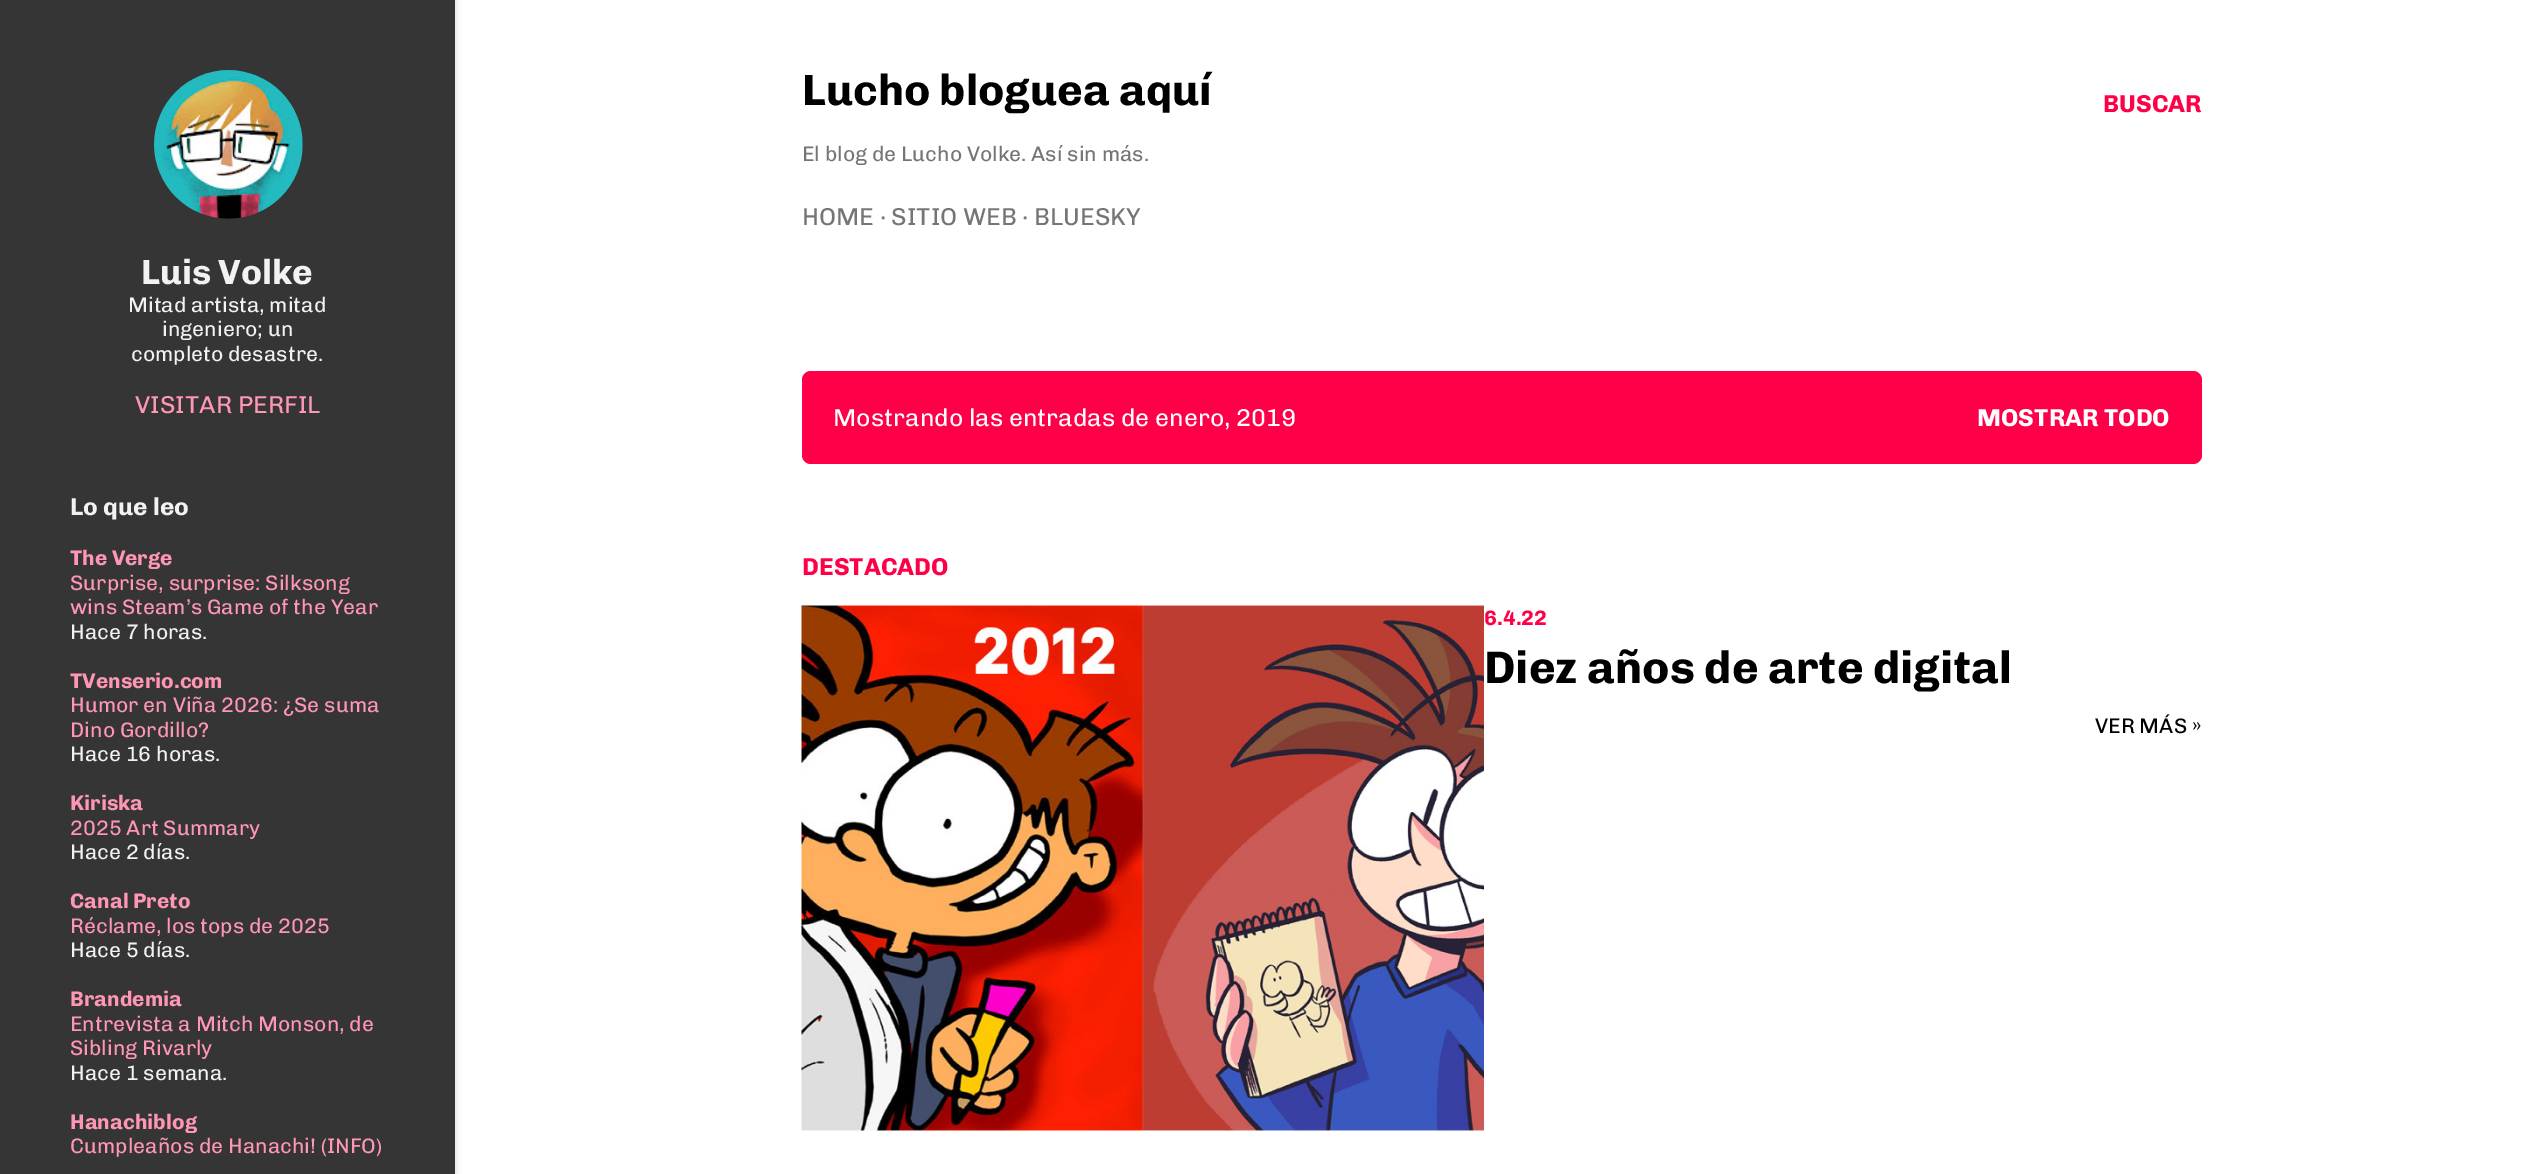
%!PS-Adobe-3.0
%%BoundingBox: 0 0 2547 1174
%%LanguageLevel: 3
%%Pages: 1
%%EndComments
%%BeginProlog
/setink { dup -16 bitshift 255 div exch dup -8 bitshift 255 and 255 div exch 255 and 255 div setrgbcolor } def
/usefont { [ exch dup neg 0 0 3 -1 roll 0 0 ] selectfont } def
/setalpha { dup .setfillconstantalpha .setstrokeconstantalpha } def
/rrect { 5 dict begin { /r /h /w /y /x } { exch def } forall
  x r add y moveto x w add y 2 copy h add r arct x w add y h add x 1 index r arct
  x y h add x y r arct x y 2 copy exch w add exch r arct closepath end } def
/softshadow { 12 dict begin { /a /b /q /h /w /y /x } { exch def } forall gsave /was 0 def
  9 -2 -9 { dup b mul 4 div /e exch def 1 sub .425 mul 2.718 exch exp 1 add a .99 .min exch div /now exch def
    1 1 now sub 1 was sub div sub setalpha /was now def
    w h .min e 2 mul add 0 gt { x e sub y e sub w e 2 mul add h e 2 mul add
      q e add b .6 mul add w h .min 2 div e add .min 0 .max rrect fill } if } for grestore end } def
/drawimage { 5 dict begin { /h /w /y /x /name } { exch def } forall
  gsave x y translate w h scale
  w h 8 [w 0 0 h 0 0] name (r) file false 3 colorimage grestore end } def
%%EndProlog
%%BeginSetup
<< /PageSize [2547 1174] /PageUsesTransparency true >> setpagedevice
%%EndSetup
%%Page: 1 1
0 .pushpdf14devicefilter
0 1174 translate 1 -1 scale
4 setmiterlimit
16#FFFFFF setink
0 0 2547 1174 rectfill
16#000000 setink
2 0 455 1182 0 2.5 0.1 softshadow
16#353535 setink
0 0 455 1174 rectfill
(img1.raw) 154 70 149 149 drawimage
/Chivo-Bold 35 usefont
16#F1F3F2 setink
141 284 moveto (Luis Volke) show
/Chivo-Regular 21 usefont
[
    [(Mitad artista, mitad) 128 312]
    [(ingeniero; un) 162 336]
    [(completo desastre.) 131 361]
] { aload pop moveto show } forall
/Chivo-Regular 24.5 usefont
16#FF96B4 setink
135 413 moveto (VISITAR PERFIL) show
/Chivo-Bold 24.5 usefont
16#F1F3F2 setink
70 515 moveto (Lo que leo) show
/Chivo-Bold 21 usefont
16#FF96B4 setink
70 565 moveto (The Verge) show
/Chivo-Regular 21 usefont
70 590 moveto (Surprise, surprise: Silksong) show
70 614 moveto (wins Steam’s Game of the Year) show
16#F1F3F2 setink
70 639 moveto (Hace 7 horas.) show
/Chivo-Bold 21 usefont
16#FF96B4 setink
70 688 moveto (TVenserio.com) show
/Chivo-Regular 21 usefont
70 712 moveto (Humor en Viña 2026: ¿Se suma) show
70 737 moveto (Dino Gordillo?) show
16#F1F3F2 setink
70 761 moveto (Hace 16 horas.) show
/Chivo-Bold 21 usefont
16#FF96B4 setink
70 810 moveto (Kiriska) show
/Chivo-Regular 21 usefont
70 835 moveto (2025 Art Summary) show
16#F1F3F2 setink
70 859 moveto (Hace 2 días.) show
/Chivo-Bold 21 usefont
16#FF96B4 setink
70 908 moveto (Canal Preto) show
/Chivo-Regular 21 usefont
70 933 moveto (Réclame, los tops de 2025) show
16#F1F3F2 setink
70 957 moveto (Hace 5 días.) show
/Chivo-Bold 21 usefont
16#FF96B4 setink
70 1006 moveto (Brandemia) show
/Chivo-Regular 21 usefont
70 1031 moveto (Entrevista a Mitch Monson, de) show
70 1055 moveto (Sibling Rivarly) show
16#F1F3F2 setink
70 1080 moveto (Hace 1 semana.) show
/Chivo-Bold 21 usefont
16#FF96B4 setink
70 1129 moveto (Hanachiblog) show
/Chivo-Regular 21 usefont
70 1153 moveto (Cumpleaños de Hanachi! \(INFO\)) show
/Chivo-Bold 43.75 usefont
16#000000 setink
802 105 moveto (Lucho bloguea aquí) show
/Chivo-Regular 21 usefont
16#757575 setink
802 161 moveto (El blog de Lucho Volke. Así sin más.) show
/Chivo-Regular 24.5 usefont
802 225 moveto (HOME · SITIO WEB · BLUESKY) show
/Chivo-Bold 24.5 usefont
16#FF0048 setink
2103 112 moveto (BUSCAR) show
802 371 1400 93 9 rrect fill
/Chivo-Regular 24.5 usefont
16#FFFFFF setink
833 426 moveto (Mostrando las entradas de enero, 2019) show
/Chivo-Bold 24.5 usefont
1977 426 moveto (MOSTRAR TODO) show
16#FF0048 setink
802 575 moveto (DESTACADO) show
(img2.raw) 801 605 683 526 drawimage
/Chivo-Bold 21 usefont
1484 625 moveto (6.4.22) show
/Chivo-Bold 45.5 usefont
16#000000 setink
1484 683 moveto (Diez años de arte digital) show
/Chivo-Regular 21 usefont
2095 733 moveto (VER MÁS ») show
.poppdf14devicefilter showpage
%%EOF
